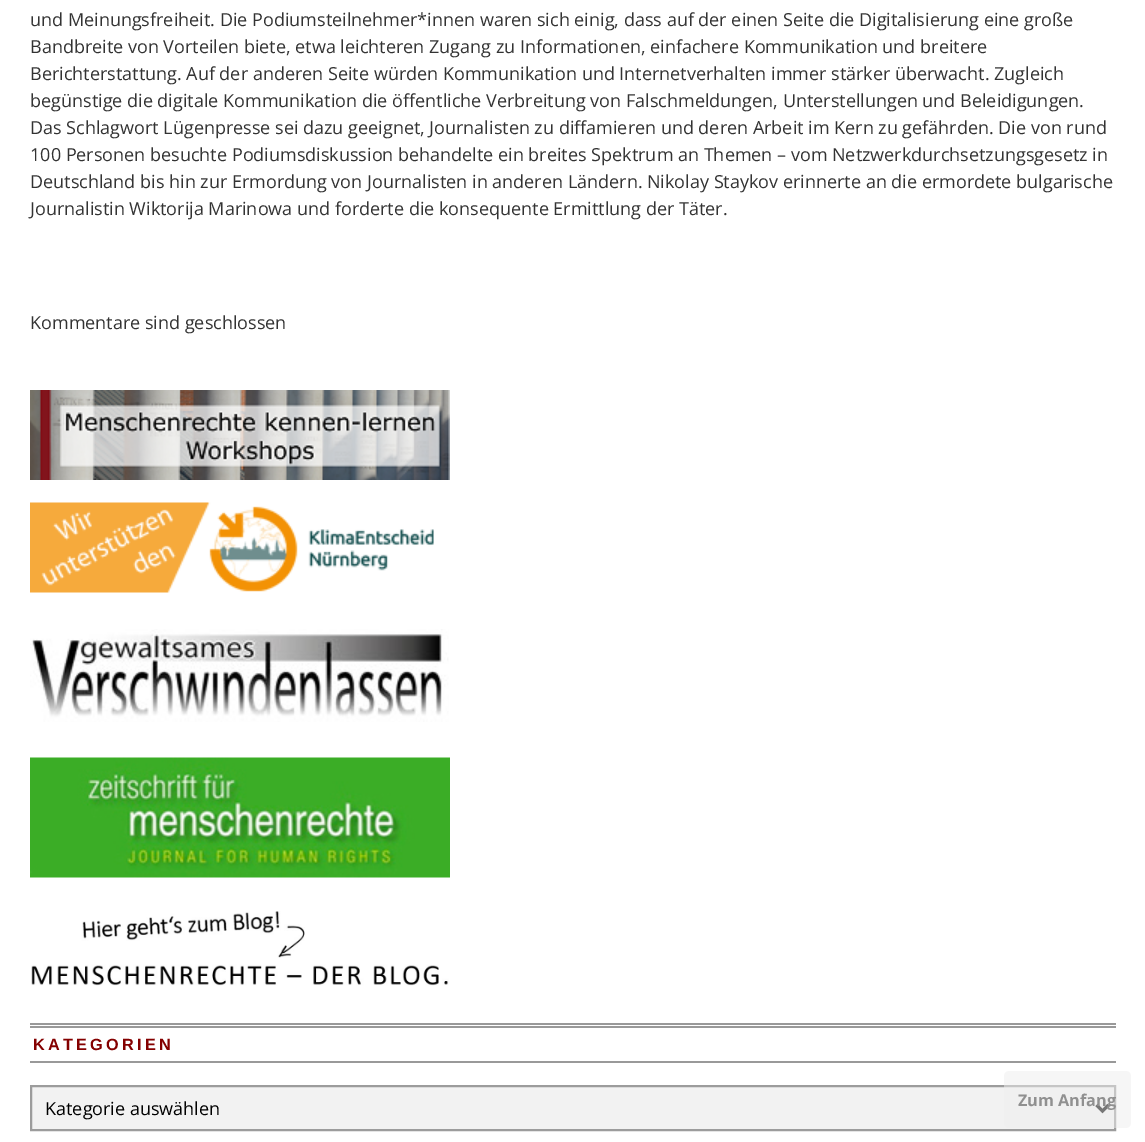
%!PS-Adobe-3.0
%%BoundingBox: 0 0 1145 1142
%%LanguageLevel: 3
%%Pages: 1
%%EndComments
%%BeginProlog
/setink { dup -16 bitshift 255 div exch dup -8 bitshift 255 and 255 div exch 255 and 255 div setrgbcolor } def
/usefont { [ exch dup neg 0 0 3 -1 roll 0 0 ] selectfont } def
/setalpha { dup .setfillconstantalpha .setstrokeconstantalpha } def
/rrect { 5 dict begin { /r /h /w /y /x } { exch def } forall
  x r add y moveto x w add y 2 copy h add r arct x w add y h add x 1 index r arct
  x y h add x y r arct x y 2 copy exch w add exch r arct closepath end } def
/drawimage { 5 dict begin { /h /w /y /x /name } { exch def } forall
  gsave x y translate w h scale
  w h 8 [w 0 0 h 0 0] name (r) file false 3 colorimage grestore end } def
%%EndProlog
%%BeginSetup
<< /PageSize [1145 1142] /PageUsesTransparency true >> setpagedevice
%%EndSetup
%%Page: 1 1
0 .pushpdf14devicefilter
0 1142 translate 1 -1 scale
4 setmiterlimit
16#FFFFFF setink
0 0 1145 1142 rectfill
/OpenSans-Regular 18 usefont
16#333333 setink
[
    [(und Meinungsfreiheit. Die Podiumsteilnehmer*innen waren sich einig, dass auf der einen Seite die Digitalisierung eine große) 30 26]
    [(Bandbreite von Vorteilen biete, etwa leichteren Zugang zu Informationen, einfachere Kommunikation und breitere) 30 53]
    [(Berichterstattung. Auf der anderen Seite würden Kommunikation und Internetverhalten immer stärker überwacht. Zugleich) 30 80]
    [(begünstige die digitale Kommunikation die öffentliche Verbreitung von Falschmeldungen, Unterstellungen und Beleidigungen.) 30 107]
    [(Das Schlagwort Lügenpresse sei dazu geeignet, Journalisten zu diffamieren und deren Arbeit im Kern zu gefährden. Die von rund) 30 134]
    [(100 Personen besuchte Podiumsdiskussion behandelte ein breites Spektrum an Themen – vom Netzwerkdurchsetzungsgesetz in) 30 161]
    [(Deutschland bis hin zur Ermordung von Journalisten in anderen Ländern. Nikolay Staykov erinnerte an die ermordete bulgarische) 30 188]
    [(Journalistin Wiktorija Marinowa und forderte die konsequente Ermittlung der Täter.) 30 215]
    [(Kommentare sind geschlossen) 30 329]
] { aload pop moveto show } forall
(img1.raw) 30 390 420 90 drawimage
(img2.raw) 30 502 404 91 drawimage
(img3.raw) 30 629 419 93 drawimage
(img4.raw) 30 757 420 121 drawimage
(img5.raw) 31 911 418 75 drawimage
[
    [30 1023 1086 2 16#999999]
    [30 1026 1086 2 16#999999]
    [30 1061 1086 2 16#999999]
] { aload pop setink rectfill } forall
/LiberationSans-Bold 16.25 usefont
16#840000 setink
33 1050 moveto 3.25 0 (KATEGORIEN) ashow
16#F2F2F2 setink
31 1086 moveto 1115 1086 lineto 1115 1130 lineto 31 1130 lineto closepath gsave fill grestore
16#9C9C9C setink
2 setlinewidth
stroke
16#000000 setink
3 setlinewidth
1096.5 1105 moveto 1102.5 1111 lineto 1108.5 1105 lineto stroke
/OpenSans-Regular 18 usefont
45 1115 moveto (Kategorie auswählen) show
0.5 setalpha
16#EEEEEE setink
1004 1071 127 57 5 rrect fill
/OpenSans-Bold 16.25 usefont
1 setalpha
16#909090 setink
1018 1106 moveto (Zum Anfang) show
.poppdf14devicefilter showpage
%%EOF
